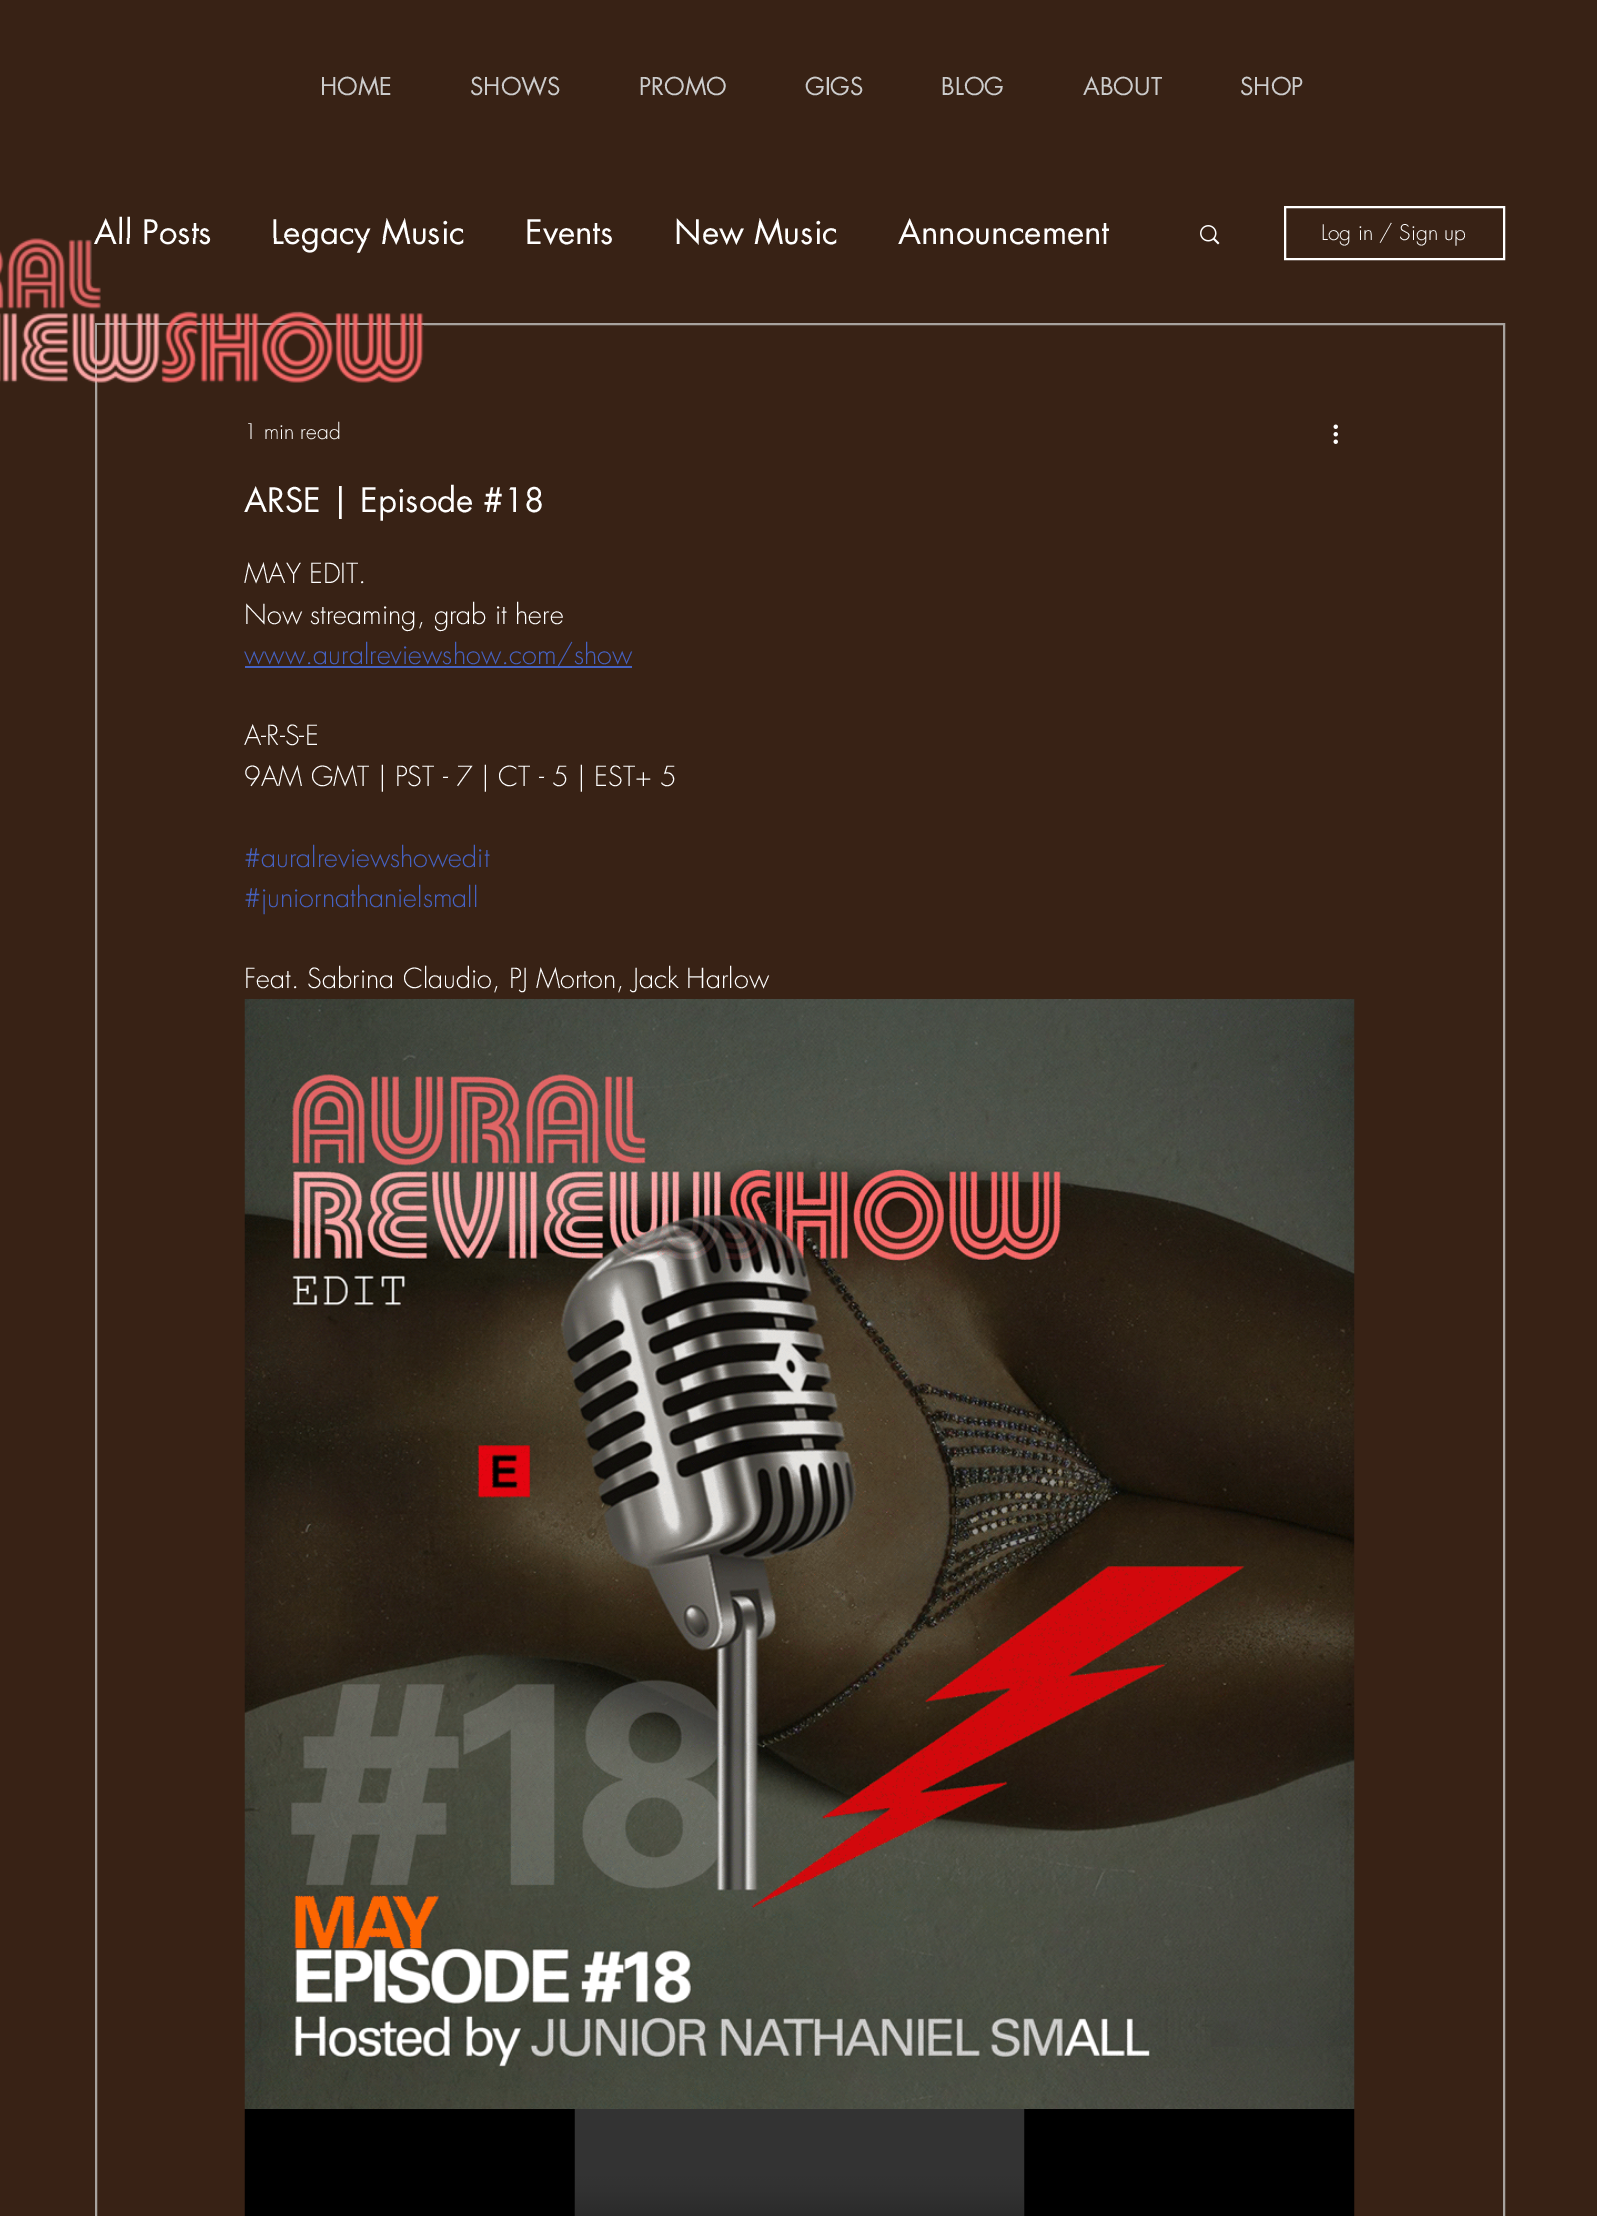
%!PS-Adobe-3.0
%%BoundingBox: 0 0 1597 2216
%%LanguageLevel: 3
%%Pages: 1
%%EndComments
%%BeginProlog
/setink { dup -16 bitshift 255 div exch dup -8 bitshift 255 and 255 div exch 255 and 255 div setrgbcolor } def
/usefont { [ exch dup neg 0 0 3 -1 roll 0 0 ] selectfont } def
/drawimage { 5 dict begin { /h /w /y /x /name } { exch def } forall
  gsave x y translate w h scale
  w h 8 [w 0 0 h 0 0] name (r) file false 3 colorimage grestore end } def
%%EndProlog
%%BeginSetup
<< /PageSize [1597 2216] >> setpagedevice
%%EndSetup
%%Page: 1 1
0 2216 translate 1 -1 scale
4 setmiterlimit
16#382215 setink
0 0 1597 2216 rectfill
/futura-Regular 24 usefont
16#CCCCCC setink
[
    [(HOME) 320 95]
    [(SHOWS) 470 95]
    [(PROMO) 639 95]
    [(GIGS) 805 95]
    [(BLOG) 941 95]
    [(ABOUT) 1083 95]
    [(SHOP) 1240 95]
] { aload pop moveto show } forall
/futura-Regular 33 usefont
16#FFFFFF setink
[
    [(All Posts) 94 244]
    [(Legacy Music) 271 244]
    [(Events) 525 244]
    [(New Music) 674 244]
    [(Announcement) 898 244]
] { aload pop moveto show } forall
(img1.raw) 1200 225 20 20 drawimage
2 setlinewidth
1285 207 219 52 rectstroke
/futura-Light 21 usefont
1321 240 moveto (Log in / Sign up) show
16#A7A29E setink
96 324 1408 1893 rectstroke
16#FFFFFF setink
244 439 moveto (1 min read) show
(img2.raw) 1333 424 5 20 drawimage
/futura-Regular 33 usefont
244 512 moveto (ARSE | Episode #18) show
/futura-Light 27 usefont
244 583 moveto (MAY EDIT.) show
244 624 moveto (Now streaming, grab it here) show
16#4662C2 setink
245 666 387 2 rectfill
244 664 moveto (www.auralreviewshow.com/show) show
16#FFFFFF setink
244 745 moveto (A-R-S-E) show
244 786 moveto (9AM GMT | PST - 7 | CT - 5 | EST+ 5) show
16#4662C2 setink
244 867 moveto (#auralreviewshowedit) show
244 907 moveto (#juniornathanielsmall) show
16#FFFFFF setink
244 988 moveto (Feat. Sabrina Claudio, PJ Morton, Jack Harlow) show
(img3.raw) 244 999 1111 1110 drawimage
(img4.raw) 244 2109 1111 107 drawimage
(img5.raw) 0 238 424 145 drawimage
showpage
%%EOF
